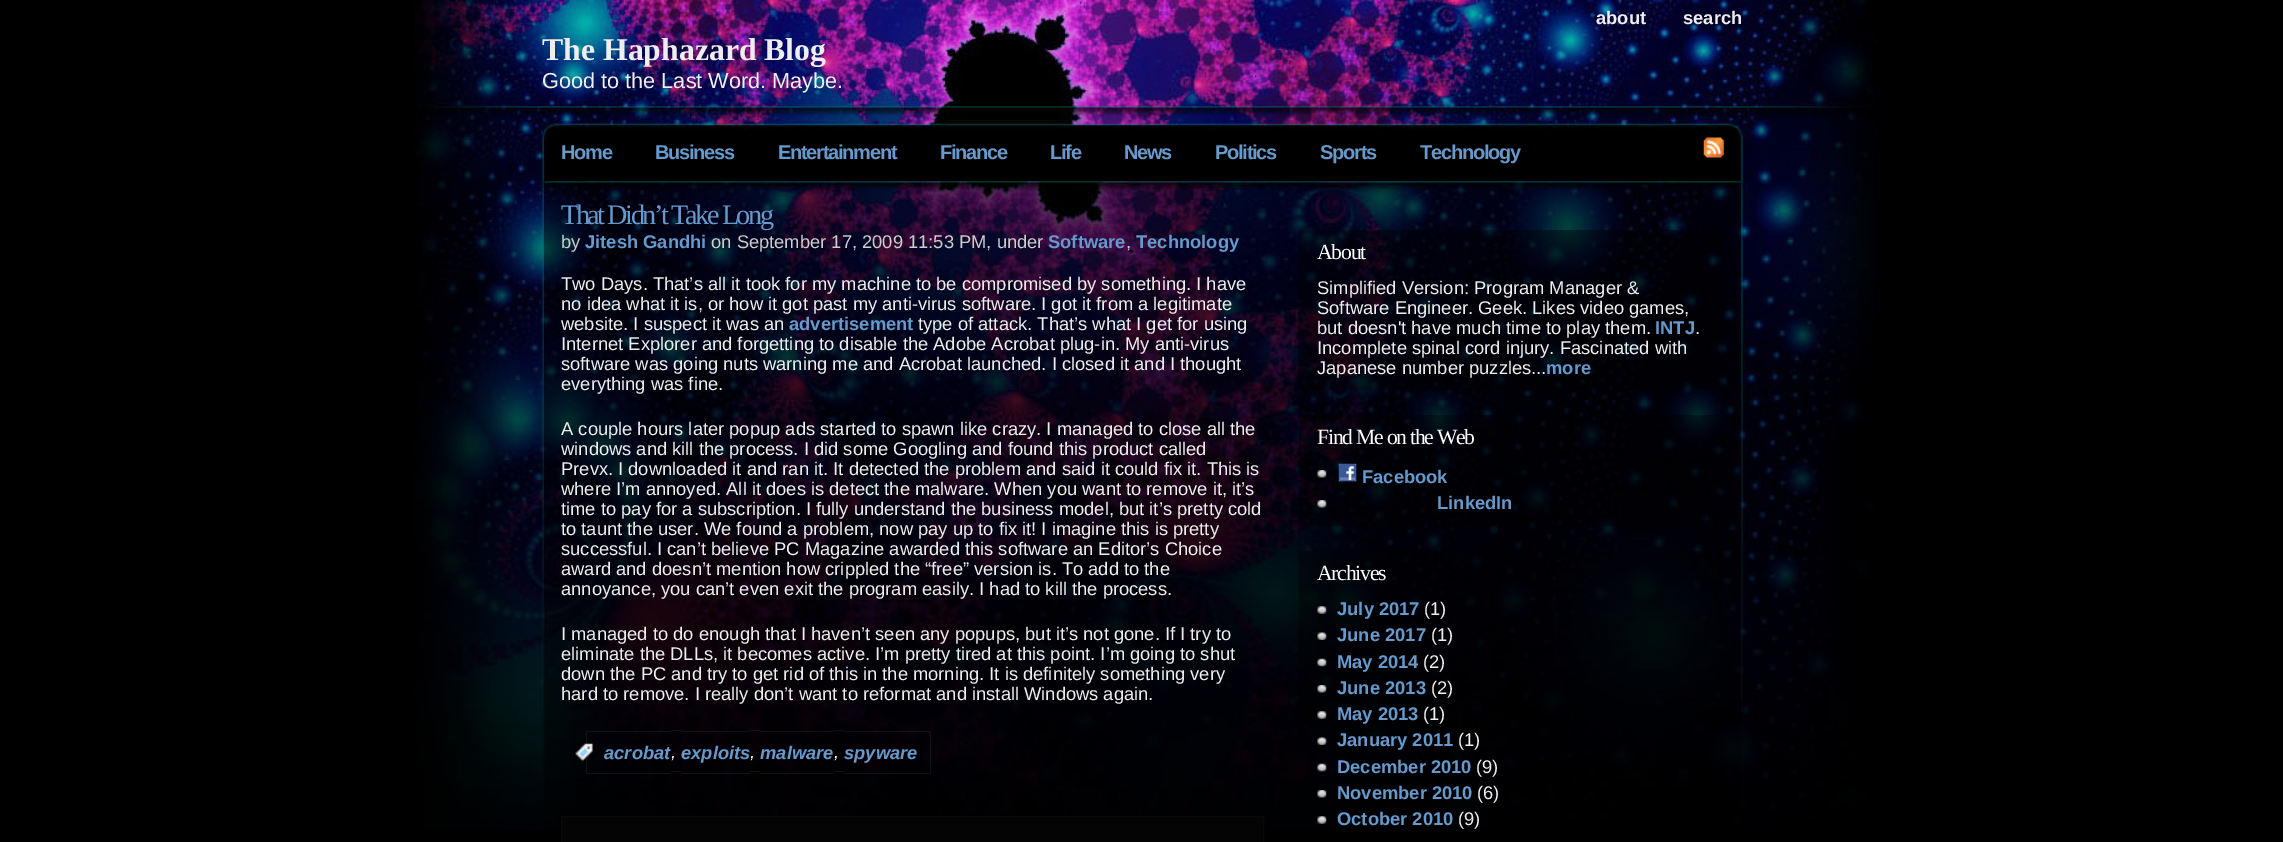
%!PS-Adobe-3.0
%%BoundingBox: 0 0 2283 842
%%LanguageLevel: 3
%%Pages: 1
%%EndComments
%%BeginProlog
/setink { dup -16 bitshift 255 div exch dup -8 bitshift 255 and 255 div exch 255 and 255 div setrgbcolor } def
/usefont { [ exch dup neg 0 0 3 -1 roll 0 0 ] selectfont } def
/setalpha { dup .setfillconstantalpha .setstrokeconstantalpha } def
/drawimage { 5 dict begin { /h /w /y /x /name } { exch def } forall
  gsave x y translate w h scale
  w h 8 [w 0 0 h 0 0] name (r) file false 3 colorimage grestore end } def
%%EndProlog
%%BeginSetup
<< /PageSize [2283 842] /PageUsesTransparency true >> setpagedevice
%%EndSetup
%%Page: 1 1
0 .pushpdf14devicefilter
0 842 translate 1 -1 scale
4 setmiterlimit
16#000000 setink
0 0 2283 842 rectfill
(img1.raw) 414 0 1463 830 drawimage
/LiberationSans-Bold 18.35 usefont
16#EEEEEE setink
1596 24 moveto (about) show
1683 24 moveto (search) show
/LiberationSerif-Bold 31.75 usefont
542 60 moveto (The Haphazard Blog) show
/LiberationSans-Regular 21.7 usefont
542 88 moveto (Good to the Last Word. Maybe.) show
/LiberationSans-Bold 20 usefont
16#6699CC setink
561 159 moveto -1.25 0 (Home) ashow
655 159 moveto -1.25 0 (Business) ashow
778 159 moveto -1.25 0 (Entertainment) ashow
940 159 moveto -1.25 0 (Finance) ashow
1050 159 moveto -1.25 0 (Life) ashow
1124 159 moveto -1.25 0 (News) ashow
1215 159 moveto -1.25 0 (Politics) ashow
1320 159 moveto -1.25 0 (Sports) ashow
1420 159 moveto -1.25 0 (Technology) ashow
(img2.raw) 1703 137 21 21 drawimage
/LiberationSerif-Regular 28.25 usefont
561 224 moveto -2.5 0 (That Didn’t Take Long) ashow
/LiberationSans-Regular 18.35 usefont
16#CDCDCD setink
561 248 moveto (by) show
/LiberationSans-Bold 18.35 usefont
16#6699CC setink
585 248 moveto (Jitesh Gandhi) show
/LiberationSans-Regular 18.35 usefont
16#CDCDCD setink
711 248 moveto (on September 17, 2009 11:53 PM, under) show
/LiberationSans-Bold 18.35 usefont
16#6699CC setink
1048 248 moveto (Software) show
/LiberationSans-Regular 18.35 usefont
16#CDCDCD setink
1126 248 moveto (,) show
/LiberationSans-Bold 18.35 usefont
16#6699CC setink
1136 248 moveto (Technology) show
/LiberationSans-Regular 18.35 usefont
16#EEEEEE setink
[
    [(Two Days. That’s all it took for my machine to be compromised by something. I have) 561 290]
    [(no idea what it is, or how it got past my anti-virus software. I got it from a legitimate) 561 310]
    [(website. I suspect it was an) 561 330]
] { aload pop moveto show } forall
/LiberationSans-Bold 18.35 usefont
16#6699CC setink
789 330 moveto (advertisement) show
/LiberationSans-Regular 18.35 usefont
16#EEEEEE setink
[
    [(type of attack. That’s what I get for using) 918 330]
    [(Internet Explorer and forgetting to disable the Adobe Acrobat plug-in. My anti-virus) 561 350]
    [(software was going nuts warning me and Acrobat launched. I closed it and I thought) 561 370]
    [(everything was fine.) 561 390]
    [(A couple hours later popup ads started to spawn like crazy. I managed to close all the) 561 435]
    [(windows and kill the process. I did some Googling and found this product called) 561 455]
    [(Prevx. I downloaded it and ran it. It detected the problem and said it could fix it. This is) 561 475]
    [(where I’m annoyed. All it does is detect the malware. When you want to remove it, it’s) 561 495]
    [(time to pay for a subscription. I fully understand the business model, but it’s pretty cold) 561 515]
    [(to taunt the user. We found a problem, now pay up to fix it! I imagine this is pretty) 561 535]
    [(successful. I can’t believe PC Magazine awarded this software an Editor’s Choice) 561 555]
    [(award and doesn’t mention how crippled the “free” version is. To add to the) 561 575]
    [(annoyance, you can’t even exit the program easily. I had to kill the process.) 561 595]
    [(I managed to do enough that I haven’t seen any popups, but it’s not gone. If I try to) 561 640]
    [(eliminate the DLLs, it becomes active. I’m pretty tired at this point. I’m going to shut) 561 660]
    [(down the PC and try to get rid of this in the morning. It is definitely something very) 561 680]
    [(hard to remove. I really don’t want to reformat and install Windows again.) 561 700]
] { aload pop moveto show } forall
[
    [586 731 85 1 16#111111]
    [586 773 85 1 16#111111]
    [586 731 1 43 16#111111]
] { aload pop setink rectfill } forall
(img3.raw) 575 743 18 19 drawimage
/LiberationSans-BoldItalic 18.35 usefont
16#6699CC setink
604 759 moveto (acrobat) show
16#111111 setink
671 730 10 1 rectfill
/LiberationSans-Italic 18.35 usefont
16#FFFFFF setink
671 758 moveto (,) show
16#111111 setink
671 771 10 1 rectfill
/LiberationSans-BoldItalic 18.35 usefont
16#6699CC setink
681 759 moveto (exploits) show
16#111111 setink
681 731 69 1 rectfill
/LiberationSans-Italic 18.35 usefont
16#FFFFFF setink
750 758 moveto (,) show
16#111111 setink
681 773 69 1 rectfill
750 771 10 1 rectfill
/LiberationSans-BoldItalic 18.35 usefont
16#6699CC setink
760 759 moveto (malware) show
[
    [750 730 10 1 16#111111]
    [760 731 74 1 16#111111]
    [834 730 10 1 16#111111]
] { aload pop setink rectfill } forall
/LiberationSans-Italic 18.35 usefont
16#FFFFFF setink
834 758 moveto (,) show
16#111111 setink
760 773 74 1 rectfill
834 771 10 1 rectfill
/LiberationSans-BoldItalic 18.35 usefont
16#6699CC setink
844 759 moveto (spyware) show
[
    [844 731 87 1 16#111111]
    [930 731 1 43 16#111111]
    [844 773 87 1 16#111111]
] { aload pop setink rectfill } forall
16#040404 setink
561.5 816.5 moveto 1263.5 816.5 lineto 1263.5 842.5 lineto 561.5 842.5 lineto closepath gsave fill grestore
16#090909 setink
stroke
0.38 setalpha
16#000000 setink
1298 230 426 160 rectfill
/LiberationSerif-Regular 21.7 usefont
1 setalpha
16#FFFFFF setink
1317 259 moveto -1.25 0 (About) ashow
/LiberationSans-Regular 18.35 usefont
16#EEEEEE setink
[
    [(Simplified Version: Program Manager &) 1317 294]
    [(Software Engineer. Geek. Likes video games,) 1317 314]
    [(but doesn't have much time to play them.) 1317 334]
] { aload pop moveto show } forall
/LiberationSans-Bold 18.35 usefont
16#6699CC setink
1655 334 moveto (INTJ) show
/LiberationSans-Regular 18.35 usefont
16#EEEEEE setink
[
    [(.) 1695 334]
    [(Incomplete spinal cord injury. Fascinated with) 1317 354]
    [(Japanese number puzzles...) 1317 374]
] { aload pop moveto show } forall
/LiberationSans-Bold 18.35 usefont
16#6699CC setink
1546 374 moveto (more) show
0.38 setalpha
16#000000 setink
1299 415 425 111 rectfill
/LiberationSerif-Regular 21.7 usefont
1 setalpha
16#FFFFFF setink
1317 444 moveto -1.25 0 (Find Me on the Web) ashow
(img4.raw) 1317 470 10 8 drawimage
(img5.raw) 1338 463 19 19 drawimage
/LiberationSans-Bold 18.35 usefont
16#6699CC setink
1362 483 moveto (Facebook) show
(img6.raw) 1317 500 10 8 drawimage
1437 509 moveto (LinkedIn) show
0.38 setalpha
16#000000 setink
1299 551 424 181 rectfill
/LiberationSerif-Regular 21.7 usefont
1 setalpha
16#FFFFFF setink
1317 580 moveto -1.25 0 (Archives) ashow
(img7.raw) 1317 606 10 8 drawimage
/LiberationSans-Bold 18.35 usefont
16#6699CC setink
1337 615 moveto (July 2017) show
/LiberationSans-Regular 18.35 usefont
16#EEEEEE setink
1424 615 moveto (\(1\)) show
(img8.raw) 1317 632 10 8 drawimage
/LiberationSans-Bold 18.35 usefont
16#6699CC setink
1337 641 moveto (June 2017) show
/LiberationSans-Regular 18.35 usefont
16#EEEEEE setink
1431 641 moveto (\(1\)) show
(img9.raw) 1317 658 10 9 drawimage
/LiberationSans-Bold 18.35 usefont
16#6699CC setink
1337 668 moveto (May 2014) show
/LiberationSans-Regular 18.35 usefont
16#EEEEEE setink
1423 668 moveto (\(2\)) show
(img10.raw) 1317 685 10 8 drawimage
/LiberationSans-Bold 18.35 usefont
16#6699CC setink
1337 694 moveto (June 2013) show
/LiberationSans-Regular 18.35 usefont
16#EEEEEE setink
1431 694 moveto (\(2\)) show
(img11.raw) 1317 711 10 8 drawimage
/LiberationSans-Bold 18.35 usefont
16#6699CC setink
1337 720 moveto (May 2013) show
/LiberationSans-Regular 18.35 usefont
16#EEEEEE setink
1423 720 moveto (\(1\)) show
(img12.raw) 1317 737 10 8 drawimage
/LiberationSans-Bold 18.35 usefont
16#6699CC setink
1337 746 moveto (January 2011) show
/LiberationSans-Regular 18.35 usefont
16#EEEEEE setink
1458 746 moveto (\(1\)) show
(img13.raw) 1317 763 10 9 drawimage
/LiberationSans-Bold 18.35 usefont
16#6699CC setink
1337 773 moveto (December 2010) show
/LiberationSans-Regular 18.35 usefont
16#EEEEEE setink
1476 773 moveto (\(9\)) show
(img14.raw) 1317 790 10 8 drawimage
/LiberationSans-Bold 18.35 usefont
16#6699CC setink
1337 799 moveto (November 2010) show
/LiberationSans-Regular 18.35 usefont
16#EEEEEE setink
1477 799 moveto (\(6\)) show
(img15.raw) 1317 816 10 8 drawimage
/LiberationSans-Bold 18.35 usefont
16#6699CC setink
1337 825 moveto (October 2010) show
/LiberationSans-Regular 18.35 usefont
16#EEEEEE setink
1458 825 moveto (\(9\)) show
.poppdf14devicefilter showpage
%%EOF
